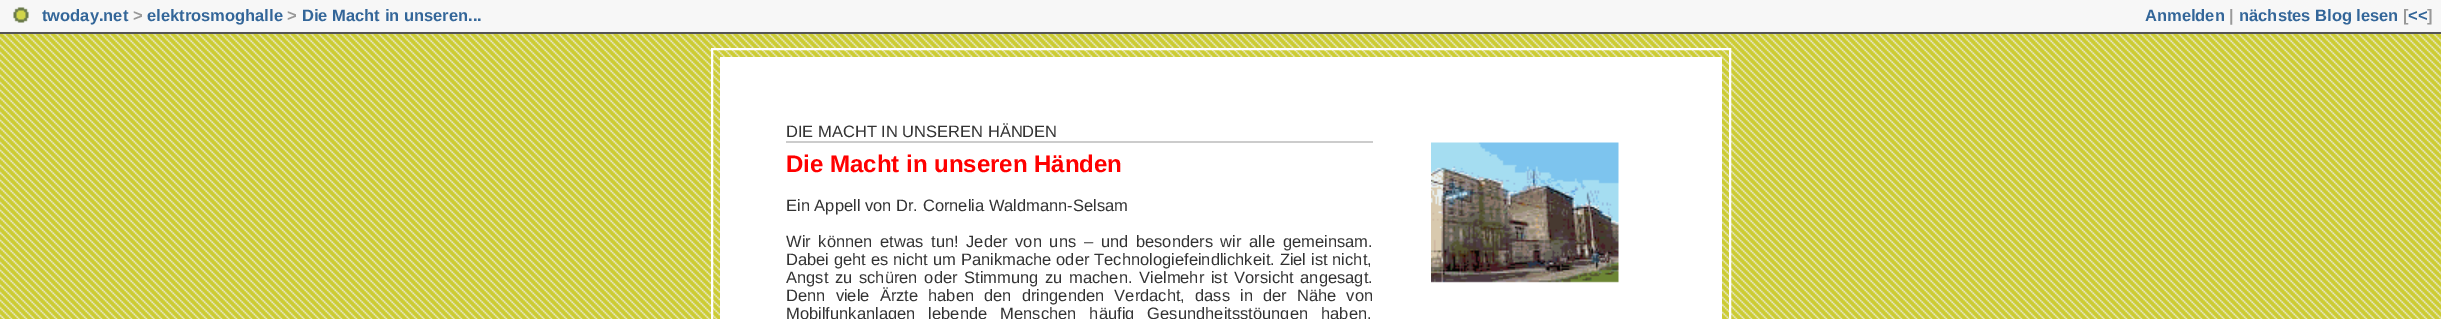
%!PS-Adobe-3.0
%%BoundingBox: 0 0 2441 319
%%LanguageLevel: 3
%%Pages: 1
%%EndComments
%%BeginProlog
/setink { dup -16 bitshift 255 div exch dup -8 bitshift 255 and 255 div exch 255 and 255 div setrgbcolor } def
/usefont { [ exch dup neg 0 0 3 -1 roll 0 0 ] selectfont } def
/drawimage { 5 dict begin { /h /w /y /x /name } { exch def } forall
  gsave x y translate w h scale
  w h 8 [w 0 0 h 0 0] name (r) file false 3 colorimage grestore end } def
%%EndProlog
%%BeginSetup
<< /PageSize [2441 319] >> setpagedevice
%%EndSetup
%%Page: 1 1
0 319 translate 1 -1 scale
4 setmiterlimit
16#CCCC33 setink
0 0 2441 319 rectfill
(img1.raw) 0 34 2441 285 drawimage
16#F7F7F7 setink
0 0 2441 32 rectfill
16#555555 setink
0 32 2441 2 rectfill
(img2.raw) 13 7 16 16 drawimage
/LiberationSans-Bold 16.5 usefont
16#336699 setink
42 21 moveto (twoday.net) show
16#999999 setink
133 21 moveto (>) show
16#336699 setink
147 21 moveto (elektrosmoghalle) show
16#999999 setink
287 21 moveto (>) show
16#336699 setink
302 21 moveto (Die Macht in unseren...) show
2145 21 moveto (Anmelden) show
16#999999 setink
2229 21 moveto (|) show
16#336699 setink
2239 21 moveto (nächstes Blog lesen) show
16#999999 setink
2403 21 moveto ([) show
16#336699 setink
2408 21 moveto (<<) show
16#999999 setink
2427 21 moveto (]) show
16#FFFFFF setink
2 setlinewidth
712 49 1018 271 rectstroke
720 57 1002 262 rectfill
16#CCCCCC setink
786 141 587 2 rectfill
/LiberationSans-Regular 16.5 usefont
16#333333 setink
786 137 moveto (DIE MACHT IN UNSEREN HÄNDEN) show
/LiberationSans-Bold 24 usefont
16#FF0000 setink
786 172 moveto (Die Macht in unseren Händen) show
/LiberationSans-Regular 16.5 usefont
16#333333 setink
786 211 moveto (Ein Appell von Dr. Cornelia Waldmann-Selsam) show
786 247 moveto 3.1 0 32 (Wir können etwas tun! Jeder von uns – und besonders wir alle gemeinsam.) widthshow
786 265 moveto 0.25 0 32 (Dabei geht es nicht um Panikmache oder Technologiefeindlichkeit. Ziel ist nicht,) widthshow
786 283 moveto 2.1 0 32 (Angst zu schüren oder Stimmung zu machen. Vielmehr ist Vorsicht angesagt.) widthshow
786 301 moveto 5.5 0 32 (Denn viele Ärzte haben den dringenden Verdacht, dass in der Nähe von) widthshow
786 319 moveto 8.5 0 32 (Mobilfunkanlagen lebende Menschen häufig Gesundheitsstöungen haben.) widthshow
(img3.raw) 1431 142 188 141 drawimage
showpage
%%EOF
